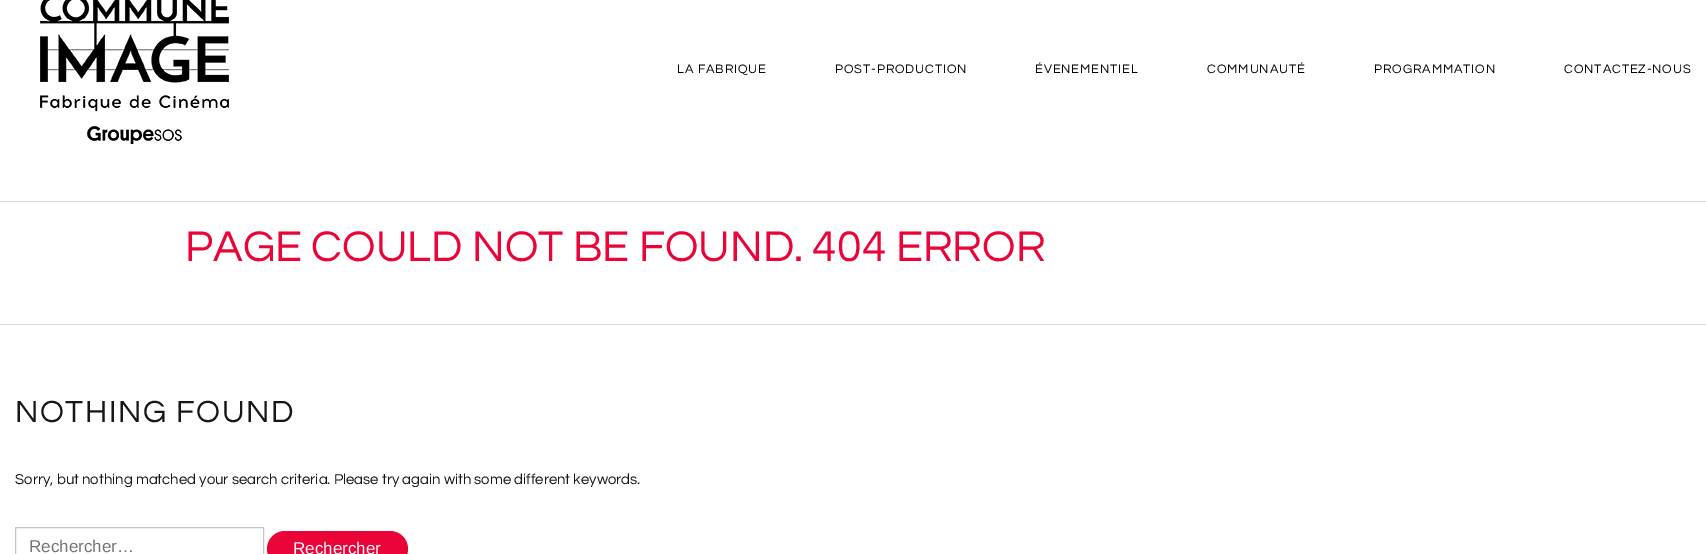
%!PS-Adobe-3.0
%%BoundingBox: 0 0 1706 554
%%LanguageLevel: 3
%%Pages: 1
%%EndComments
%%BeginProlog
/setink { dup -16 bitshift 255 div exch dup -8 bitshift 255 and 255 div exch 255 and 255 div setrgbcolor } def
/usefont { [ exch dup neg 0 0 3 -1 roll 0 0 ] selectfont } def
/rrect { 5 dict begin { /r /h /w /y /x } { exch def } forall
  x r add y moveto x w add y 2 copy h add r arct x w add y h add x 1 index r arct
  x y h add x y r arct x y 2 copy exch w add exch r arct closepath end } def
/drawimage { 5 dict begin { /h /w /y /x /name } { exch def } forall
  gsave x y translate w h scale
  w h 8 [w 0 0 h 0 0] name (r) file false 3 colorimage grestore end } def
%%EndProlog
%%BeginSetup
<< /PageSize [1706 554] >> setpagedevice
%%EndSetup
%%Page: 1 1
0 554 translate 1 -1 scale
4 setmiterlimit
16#FFFFFF setink
0 0 1706 554 rectfill
(img1.raw) 40 0 189 144 drawimage
/Questrial-Regular 12.75 usefont
16#000000 setink
677 73 moveto 0.9 0 (LA FABRIQUE) ashow
835 73 moveto 0.9 0 (POST-PRODUCTION) ashow
1035 73 moveto 0.9 0 (ÉVENEMENTIEL) ashow
1207 73 moveto 0.9 0 (COMMUNAUTÉ) ashow
1374 73 moveto 0.9 0 (PROGRAMMATION) ashow
1564 73 moveto 0.9 0 (CONTACTEZ-NOUS) ashow
16#D9D9D9 setink
0 201 1706 1 rectfill
/Questrial-Regular 44.6 usefont
16#EA0437 setink
185 261 moveto (PAGE COULD NOT BE FOUND. 404 ERROR) show
16#D9D9D9 setink
0 324 1706 1 rectfill
/Questrial-Regular 31.9 usefont
16#181616 setink
15 422 moveto 1.6 0 (NOTHING FOUND) ashow
/Questrial-Regular 14.9 usefont
15 484 moveto (Sorry, but nothing matched your search criteria. Please try again with some different keywords.) show
16#C5C5C5 setink
15.5 527.5 248 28 0.5 rrect stroke
/LiberationSans-Regular 17 usefont
16#747373 setink
29 552 moveto (Rechercher…) show
16#EA0437 setink
267 531 141 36 18 rrect fill
16#FFFFFF setink
293 554 moveto (Rechercher) show
showpage
%%EOF
